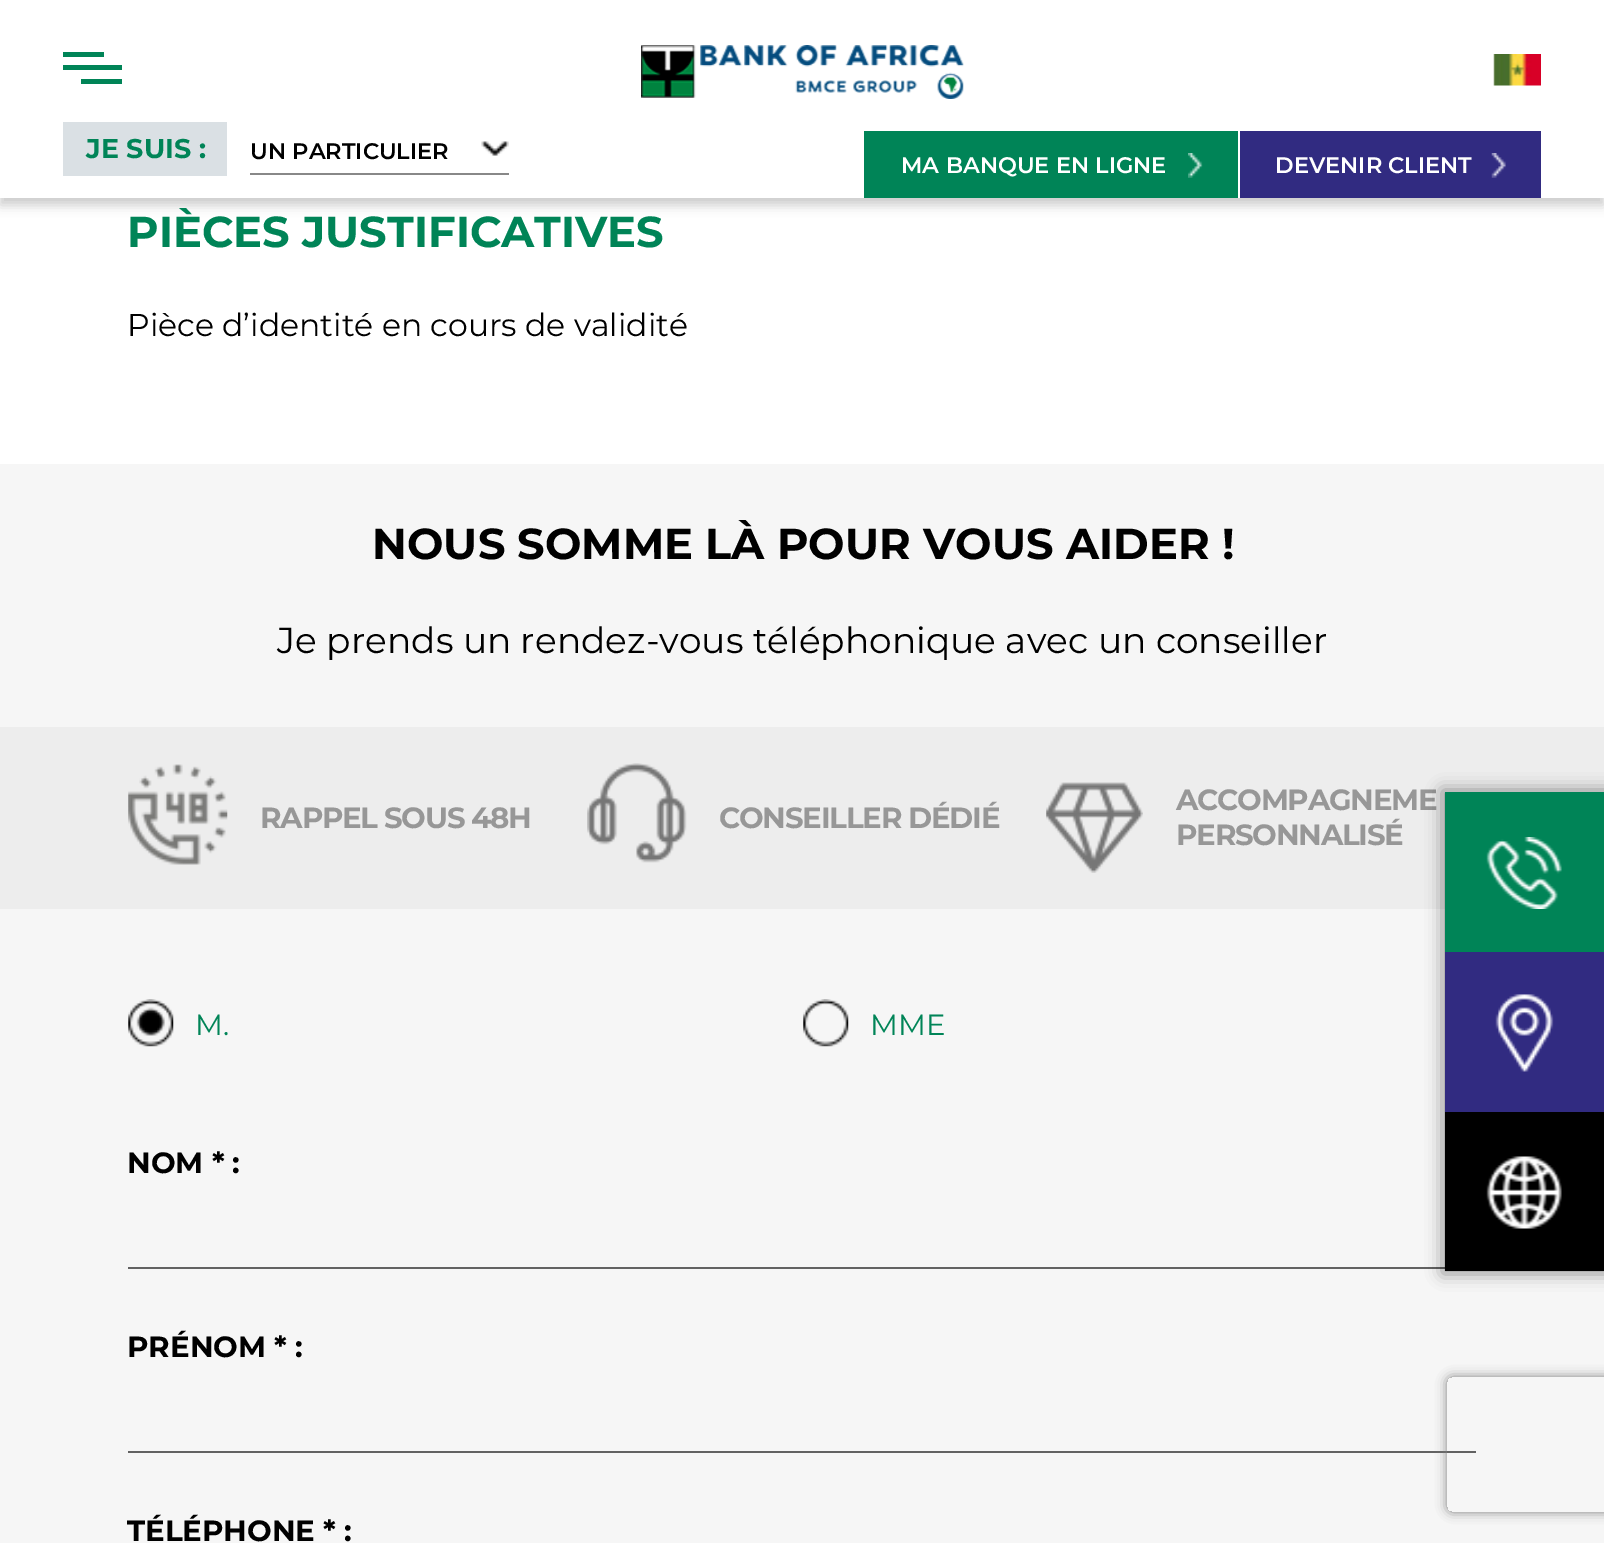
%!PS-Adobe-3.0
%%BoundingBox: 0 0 1604 1543
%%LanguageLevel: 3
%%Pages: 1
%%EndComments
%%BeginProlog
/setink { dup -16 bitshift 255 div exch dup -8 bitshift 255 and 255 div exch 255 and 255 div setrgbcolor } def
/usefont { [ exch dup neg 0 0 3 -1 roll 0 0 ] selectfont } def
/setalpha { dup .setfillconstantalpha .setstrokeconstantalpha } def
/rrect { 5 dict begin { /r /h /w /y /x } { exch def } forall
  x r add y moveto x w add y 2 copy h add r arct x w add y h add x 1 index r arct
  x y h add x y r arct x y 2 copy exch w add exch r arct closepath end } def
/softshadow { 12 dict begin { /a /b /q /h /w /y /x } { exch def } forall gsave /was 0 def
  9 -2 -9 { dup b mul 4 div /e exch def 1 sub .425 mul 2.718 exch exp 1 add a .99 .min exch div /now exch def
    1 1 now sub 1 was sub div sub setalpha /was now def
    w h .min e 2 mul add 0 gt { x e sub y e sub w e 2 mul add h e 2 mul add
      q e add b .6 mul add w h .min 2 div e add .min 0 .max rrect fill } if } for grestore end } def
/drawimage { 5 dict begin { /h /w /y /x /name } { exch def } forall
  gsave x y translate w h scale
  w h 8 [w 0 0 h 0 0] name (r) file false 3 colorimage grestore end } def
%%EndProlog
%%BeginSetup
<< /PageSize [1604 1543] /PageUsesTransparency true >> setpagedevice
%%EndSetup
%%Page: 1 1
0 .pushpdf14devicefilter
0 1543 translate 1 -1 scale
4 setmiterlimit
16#FFFFFF setink
0 0 1604 1543 rectfill
16#000000 setink
0 7 1604 198 0 5.5 0.2 softshadow
16#FFFFFF setink
0 0 1604 198 rectfill
(img1.raw) 641 45 323 54 drawimage
[
    [63 52 41 5 16#008457]
    [81 79 41 5 16#008457]
    [63 65 59 5 16#008457]
    [63 122 164 54 16#DAE0E4]
] { aload pop setink rectfill } forall
/Montserrat-Bold 27 usefont
16#008457 setink
86 158 moveto (JE SUIS :) show
16#888888 setink
250 173 259 2 rectfill
/Montserrat-SemiBold 22.5 usefont
16#000000 setink
250 159 moveto (UN PARTICULIER) show
(img2.raw) 481 141 28 15 drawimage
(img3.raw) 1493 54 48 32 drawimage
16#008457 setink
864 131 374 67 rectfill
(img4.raw) 1188 153 15 25 drawimage
16#FFFFFF setink
901 173 moveto (MA BANQUE EN LIGNE) show
16#312B81 setink
1240 131 301 67 rectfill
(img5.raw) 1491 153 15 25 drawimage
16#FFFFFF setink
1275 173 moveto (DEVENIR CLIENT) show
/Montserrat-Bold 43.25 usefont
16#008457 setink
127 247 moveto (PIÈCES JUSTIFICATIVES) show
/Montserrat-Regular 31.5 usefont
16#000000 setink
127 336 moveto (Pièce d’identité en cours de validité) show
16#F6F6F6 setink
0 464 1604 263 rectfill
/Montserrat-Bold 43.25 usefont
16#000000 setink
372 559 moveto (NOUS SOMME LÀ POUR VOUS AIDER !) show
/Montserrat-Regular 36 usefont
277 653 moveto (Je prends un rendez-vous téléphonique avec un conseiller) show
16#EDEDED setink
0 727 1604 182 rectfill
(img6.raw) 128 764 100 101 drawimage
/Montserrat-Bold 29.25 usefont
16#979797 setink
260 828 moveto -1.2 0 (RAPPEL SOUS 48H) ashow
(img7.raw) 587 763 100 100 drawimage
719 828 moveto -1.2 0 (CONSEILLER DÉDIÉ) ashow
(img8.raw) 1046 782 97 91 drawimage
1176 810 moveto -1.2 0 (ACCOMPAGNEME) ashow
1176 845 moveto -1.2 0 (PERSONNALISÉ) ashow
16#F6F6F6 setink
0 909 1604 634 rectfill
(img9.raw) 128 999 46 48 drawimage
/Montserrat-Regular 29.25 usefont
16#008457 setink
195 1035 moveto (M.) show
(img10.raw) 803 999 46 48 drawimage
870 1035 moveto (MME) show
/Montserrat-Bold 29.25 usefont
16#000000 setink
127 1173 moveto (NOM * :) show
16#626262 setink
128 1267 1317 2 rectfill
16#000000 setink
127 1357 moveto (PRÉNOM * :) show
16#626262 setink
128 1451 1348 2 rectfill
16#000000 setink
127 1541 moveto (TÉLÉPHONE * :) show
1442 790 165 484 0 8 0.4 softshadow
16#008457 setink
1445 792 159 160 rectfill
(img11.raw) 1486 837 76 72 drawimage
16#312B81 setink
1445 952 159 160 rectfill
(img12.raw) 1495 994 59 78 drawimage
16#000000 setink
1445 1112 159 159 rectfill
(img13.raw) 1486 1156 76 73 drawimage
gsave
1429 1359 moveto 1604 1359 lineto 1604 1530 lineto 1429 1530 lineto closepath 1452 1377 moveto 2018 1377 lineto 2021 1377 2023 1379 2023 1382 curveto 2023 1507 lineto 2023 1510 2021 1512 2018 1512 curveto 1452 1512 lineto 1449 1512 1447 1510 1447 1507 curveto 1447 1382 lineto 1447 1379 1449 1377 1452 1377 curveto closepath eoclip newpath
16#808080 setink
1447 1377 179 135 5 5.5 1 softshadow
grestore
.poppdf14devicefilter showpage
%%EOF
